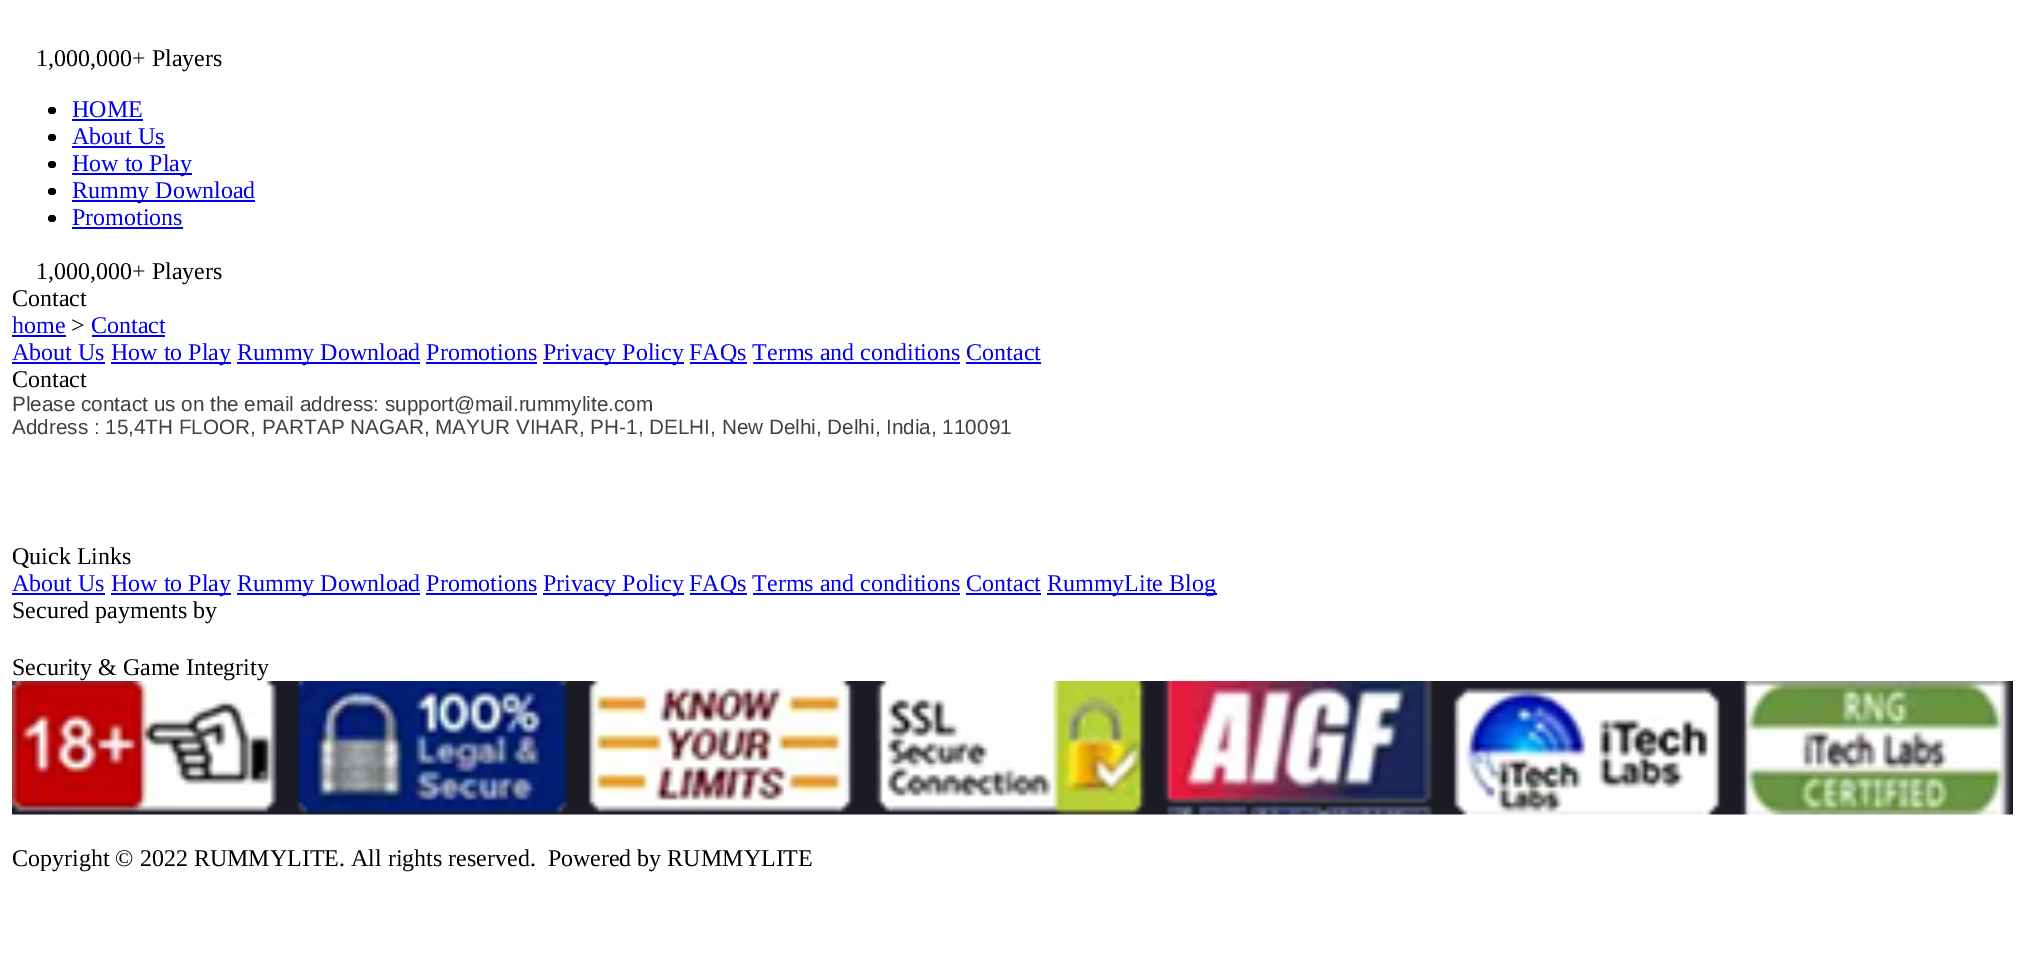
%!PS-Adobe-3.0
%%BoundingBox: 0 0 2025 959
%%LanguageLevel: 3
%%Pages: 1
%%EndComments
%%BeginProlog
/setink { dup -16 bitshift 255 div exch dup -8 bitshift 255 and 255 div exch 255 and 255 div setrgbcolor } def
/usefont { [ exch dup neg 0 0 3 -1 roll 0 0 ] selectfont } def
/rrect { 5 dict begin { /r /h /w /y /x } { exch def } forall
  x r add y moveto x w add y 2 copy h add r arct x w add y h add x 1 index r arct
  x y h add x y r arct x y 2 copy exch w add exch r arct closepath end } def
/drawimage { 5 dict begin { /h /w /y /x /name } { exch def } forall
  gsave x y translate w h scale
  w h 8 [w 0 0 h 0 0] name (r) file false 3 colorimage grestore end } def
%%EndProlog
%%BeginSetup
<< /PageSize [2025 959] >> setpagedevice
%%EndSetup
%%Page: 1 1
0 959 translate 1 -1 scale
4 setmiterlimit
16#FFFFFF setink
0 0 2025 959 rectfill
/LiberationSerif-Regular 24 usefont
16#000000 setink
36 66 moveto (1,000,000+ Players) show
48 107 8 7 3.5 rrect fill
16#0000EE setink
72 117 moveto (HOME) show
72 119 71 2 rectfill
16#000000 setink
48 134 8 7 3.5 rrect fill
16#0000EE setink
72 144 moveto (About Us) show
72 146 93 2 rectfill
16#000000 setink
48 161 8 7 3.5 rrect fill
16#0000EE setink
72 173 120 2 rectfill
72 171 moveto (How to Play) show
16#000000 setink
48 188 8 7 3.5 rrect fill
16#0000EE setink
72 200 183 2 rectfill
72 198 moveto (Rummy Download) show
16#000000 setink
48 215 8 7 3.5 rrect fill
16#0000EE setink
72 225 moveto (Promotions) show
72 227 111 2 rectfill
16#000000 setink
36 279 moveto (1,000,000+ Players) show
12 306 moveto (Contact) show
16#0000EE setink
12 333 moveto (home) show
12 335 54 2 rectfill
16#000000 setink
71 333 moveto (>) show
16#0000EE setink
91 333 moveto (Contact) show
92 335 73 2 rectfill
12 360 moveto (About Us) show
12 362 93 2 rectfill
111 362 120 2 rectfill
111 360 moveto (How to Play) show
237 362 183 2 rectfill
237 360 moveto (Rummy Download Promotions) show
543 362 141 2 rectfill
543 360 moveto (Privacy Policy) show
690 362 57 2 rectfill
689 360 moveto (FAQs Terms and conditions Contact) show
[
    [426 362 111 2 16#0000EE]
    [753 362 207 2 16#0000EE]
    [966 362 75 2 16#0000EE]
] { aload pop setink rectfill } forall
16#000000 setink
12 387 moveto (Contact) show
/LiberationSans-Regular 20.7 usefont
16#414141 setink
12 411 moveto (Please contact us on the email address: support@mail.rummylite.com) show
12 434 moveto (Address : 15,4TH FLOOR, PARTAP NAGAR, MAYUR VIHAR, PH-1, DELHI, New Delhi, Delhi, India, 110091) show
/LiberationSerif-Regular 24 usefont
16#000000 setink
12 564 moveto (Quick Links) show
16#0000EE setink
12 591 moveto (About Us) show
12 593 93 2 rectfill
111 593 120 2 rectfill
111 591 moveto (How to Play) show
237 593 183 2 rectfill
237 591 moveto (Rummy Download Promotions) show
543 593 141 2 rectfill
543 591 moveto (Privacy Policy) show
690 593 57 2 rectfill
689 591 moveto (FAQs Terms and conditions Contact) show
1047 593 170 2 rectfill
1047 591 moveto (RummyLite Blog) show
[
    [426 593 111 2 16#0000EE]
    [753 593 207 2 16#0000EE]
    [966 593 75 2 16#0000EE]
] { aload pop setink rectfill } forall
16#000000 setink
12 618 moveto (Secured payments by) show
12 675 moveto (Security & Game Integrity) show
(img1.raw) 12 681 2001 134 drawimage
12 866 moveto (Copyright © 2022 RUMMYLITE. All rights reserved.  Powered by RUMMYLITE) show
showpage
%%EOF
